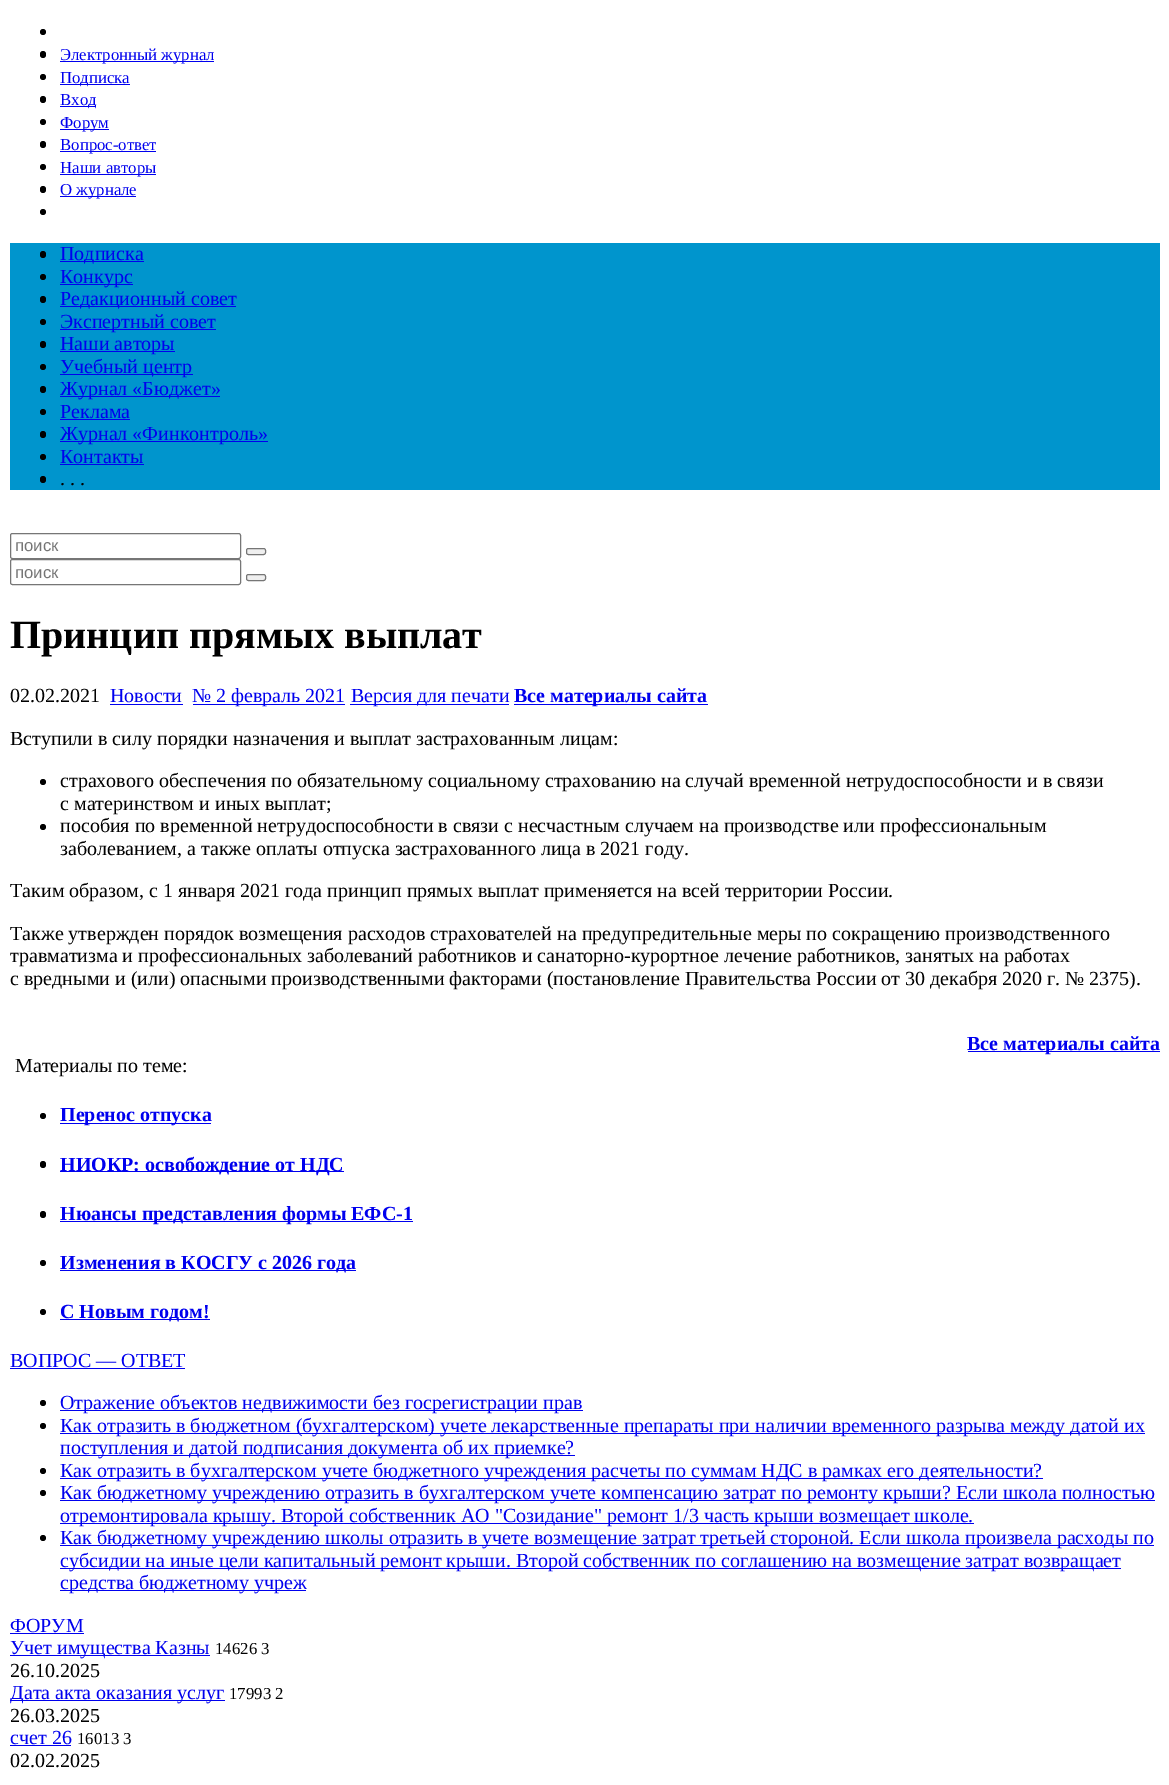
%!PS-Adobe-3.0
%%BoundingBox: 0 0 1169 1785
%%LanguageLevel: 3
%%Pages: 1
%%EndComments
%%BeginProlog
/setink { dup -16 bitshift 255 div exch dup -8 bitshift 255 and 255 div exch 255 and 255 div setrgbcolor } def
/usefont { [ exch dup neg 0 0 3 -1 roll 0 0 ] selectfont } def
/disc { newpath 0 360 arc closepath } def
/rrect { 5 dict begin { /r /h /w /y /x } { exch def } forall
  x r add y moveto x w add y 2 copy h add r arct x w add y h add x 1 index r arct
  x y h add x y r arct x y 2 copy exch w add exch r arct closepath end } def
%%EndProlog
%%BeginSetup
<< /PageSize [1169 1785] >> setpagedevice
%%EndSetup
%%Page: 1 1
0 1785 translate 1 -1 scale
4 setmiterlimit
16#FFFFFF setink
0 0 1169 1785 rectfill
16#000000 setink
43 32 3 disc fill
40 51 6 7 3 rrect fill
16#0000EE setink
60 61 154 1 rectfill
/LiberationSerif-Regular 16.75 usefont
60 60 moveto (Электронный журнал) show
16#000000 setink
43 77 3 disc fill
16#0000EE setink
60 84 70 1 rectfill
60 83 moveto (Подписка) show
16#000000 setink
40 96 6 7 3 rrect fill
16#0000EE setink
60 106 36 1 rectfill
60 105 moveto (Вход) show
16#000000 setink
43 122 3 disc fill
16#0000EE setink
60 129 49 1 rectfill
60 128 moveto (Форум) show
16#000000 setink
40 141 6 7 3 rrect fill
16#0000EE setink
60 151 96 1 rectfill
60 150 moveto (Вопрос-ответ) show
16#000000 setink
43 167 3 disc fill
16#0000EE setink
60 174 96 1 rectfill
60 173 moveto (Наши авторы) show
16#000000 setink
40 186 6 7 3 rrect fill
16#0000EE setink
60 196 76 1 rectfill
60 195 moveto (О журнале) show
16#000000 setink
43 212 3 disc fill
16#0095CD setink
10 243 1150 247 rectfill
16#000000 setink
40 251 6 7 3 rrect fill
16#0000EE setink
60 261 84 1 rectfill
/LiberationSerif-Regular 20 usefont
60 260 moveto (Подписка) show
16#000000 setink
43 277 3 disc fill
16#0000EE setink
60 284 73 1 rectfill
60 283 moveto (Конкурс) show
16#000000 setink
40 296 6 7 3 rrect fill
16#0000EE setink
60 306 176 1 rectfill
60 305 moveto (Редакционный совет) show
16#000000 setink
43 322 3 disc fill
16#0000EE setink
60 329 156 1 rectfill
60 328 moveto (Экспертный совет) show
16#000000 setink
40 341 6 7 3 rrect fill
16#0000EE setink
60 351 115 1 rectfill
60 350 moveto (Наши авторы) show
16#000000 setink
43 367 3 disc fill
16#0000EE setink
60 374 133 1 rectfill
60 373 moveto (Учебный центр) show
16#000000 setink
40 386 6 7 3 rrect fill
16#0000EE setink
60 396 160 1 rectfill
60 395 moveto (Журнал «Бюджет») show
16#000000 setink
43 412 3 disc fill
16#0000EE setink
60 418 moveto (Реклама) show
60 419 70 1 rectfill
16#000000 setink
40 431 6 7 3 rrect fill
16#0000EE setink
60 441 208 1 rectfill
60 440 moveto (Журнал «Финконтроль») show
16#000000 setink
43 457 3 disc fill
16#0000EE setink
60 463 moveto (Контакты) show
60 464 84 1 rectfill
16#000000 setink
40 476 6 7 3 rrect fill
60 485 moveto (. . .) show
16#767676 setink
10.5 533.5 230 25 2 rrect stroke
/LiberationSans-Regular 16.75 usefont
16#757575 setink
15 551 moveto (поиск) show
16#EFEFEF setink
246.5 548.5 19 6 2 rrect gsave fill grestore
16#767676 setink
stroke
10.5 559.5 230 25 2 rrect stroke
16#757575 setink
15 578 moveto (поиск) show
16#EFEFEF setink
246.5 574.5 19 6 2 rrect gsave fill grestore
16#767676 setink
stroke
/LiberationSerif-Bold 40 usefont
16#000000 setink
10 648 moveto (Принцип прямых выплат) show
/LiberationSerif-Regular 20 usefont
10 702 moveto (02.02.2021) show
16#0000EE setink
110 702 moveto (Новости) show
110 704 73 1 rectfill
193 704 152 1 rectfill
192 702 moveto (№ 2 февраль 2021) show
350 704 159 1 rectfill
351 702 moveto (Версия для печати) show
514 704 194 1 rectfill
/LiberationSerif-Bold 20 usefont
514 702 moveto (Все материалы сайта) show
/LiberationSerif-Regular 20 usefont
16#000000 setink
10 745 moveto (Вступили в силу порядки назначения и выплат застрахованным лицам:) show
43 782 3 disc fill
60 787 moveto (страхового обеспечения по обязательному социальному страхованию на случай временной нетрудоспособности и в связи) show
60 810 moveto (с материнством и иных выплат;) show
43 827 3 disc fill
[
    [(пособия по временной нетрудоспособности в связи с несчастным случаем на производстве или профессиональным) 60 832]
    [(заболеванием, а также оплаты отпуска застрахованного лица в 2021 году.) 60 855]
    [(Таким образом, с 1 января 2021 года принцип прямых выплат применяется на всей территории России.) 10 897]
    [(Также утвержден порядок возмещения расходов страхователей на предупредительные меры по сокращению производственного) 10 940]
    [(травматизма и профессиональных заболеваний работников и санаторно-курортное лечение работников, занятых на работах) 10 962]
    [(с вредными и \(или\) опасными производственными факторами \(постановление Правительства России от 30 декабря 2020 г. № 2375\).) 10 985]
] { aload pop moveto show } forall
16#0000EE setink
968 1051 192 1 rectfill
/LiberationSerif-Bold 20 usefont
967 1050 moveto (Все материалы сайта) show
/LiberationSerif-Regular 20 usefont
16#000000 setink
15 1072 moveto (Материалы по теме:) show
43 1116 3 disc fill
16#0000EE setink
60 1123 151 1 rectfill
/LiberationSerif-Bold 20 usefont
60 1121 moveto (Перенос отпуска) show
16#000000 setink
40 1161 6 7 3 rrect fill
16#0000EE setink
60 1171 284 1 rectfill
60 1171 moveto (НИОКР: освобождение от НДС) show
16#000000 setink
40 1211 6 7 3 rrect fill
16#0000EE setink
60 1221 353 1 rectfill
60 1220 moveto (Нюансы представления формы ЕФС-1) show
16#000000 setink
43 1263 3 disc fill
16#0000EE setink
60 1270 296 1 rectfill
60 1269 moveto (Изменения в КОСГУ с 2026 года) show
16#000000 setink
43 1312 3 disc fill
16#0000EE setink
60 1319 150 1 rectfill
60 1318 moveto (С Новым годом!) show
/LiberationSerif-Regular 20 usefont
10 1367 moveto (ВОПРОС — ОТВЕТ) show
10 1368 175 1 rectfill
16#000000 setink
43 1403 3 disc fill
16#0000EE setink
60 1410 523 1 rectfill
60 1409 moveto (Отражение объектов недвижимости без госрегистрации прав) show
16#000000 setink
43 1426 3 disc fill
16#0000EE setink
60 1433 1085 1 rectfill
60 1432 moveto (Как отразить в бюджетном \(бухгалтерском\) учете лекарственные препараты при наличии временного разрыва между датой их) show
60 1455 515 1 rectfill
60 1454 moveto (поступления и датой подписания документа об их приемке?) show
16#000000 setink
43 1471 3 disc fill
16#0000EE setink
60 1478 983 1 rectfill
60 1477 moveto (Как отразить в бухгалтерском учете бюджетного учреждения расчеты по суммам НДС в рамках его деятельности?) show
16#000000 setink
43 1493 3 disc fill
16#0000EE setink
60 1500 1095 1 rectfill
60 1499 moveto (Как бюджетному учреждению отразить в бухгалтерском учете компенсацию затрат по ремонту крыши? Если школа полностью) show
60 1523 914 1 rectfill
60 1522 moveto (отремонтировала крышу. Второй собственник АО "Созидание" ремонт 1/3 часть крыши возмещает школе.) show
16#000000 setink
43 1538 3 disc fill
16#0000EE setink
60 1545 1094 1 rectfill
60 1544 moveto (Как бюджетному учреждению школы отразить в учете возмещение затрат третьей стороной. Если школа произвела расходы по) show
60 1568 1061 1 rectfill
60 1567 moveto (субсидии на иные цели капитальный ремонт крыши. Второй собственник по соглашению на возмещение затрат возвращает) show
60 1590 246 1 rectfill
60 1589 moveto (средства бюджетному учреж) show
10 1632 moveto (ФОРУМ) show
10 1633 74 1 rectfill
10 1655 200 1 rectfill
10 1654 moveto (Учет имущества Казны) show
/LiberationSerif-Regular 16.75 usefont
16#000000 setink
215 1654 moveto (14626 3) show
/LiberationSerif-Regular 20 usefont
10 1677 moveto (26.10.2025) show
16#0000EE setink
10 1700 215 1 rectfill
10 1699 moveto (Дата акта оказания услуг) show
/LiberationSerif-Regular 16.75 usefont
16#000000 setink
229 1699 moveto (17993 2) show
/LiberationSerif-Regular 20 usefont
10 1722 moveto (26.03.2025) show
16#0000EE setink
10 1744 moveto (счет 26) show
10 1745 61 1 rectfill
/LiberationSerif-Regular 16.75 usefont
16#000000 setink
77 1744 moveto (16013 3) show
/LiberationSerif-Regular 20 usefont
10 1767 moveto (02.02.2025) show
showpage
%%EOF
